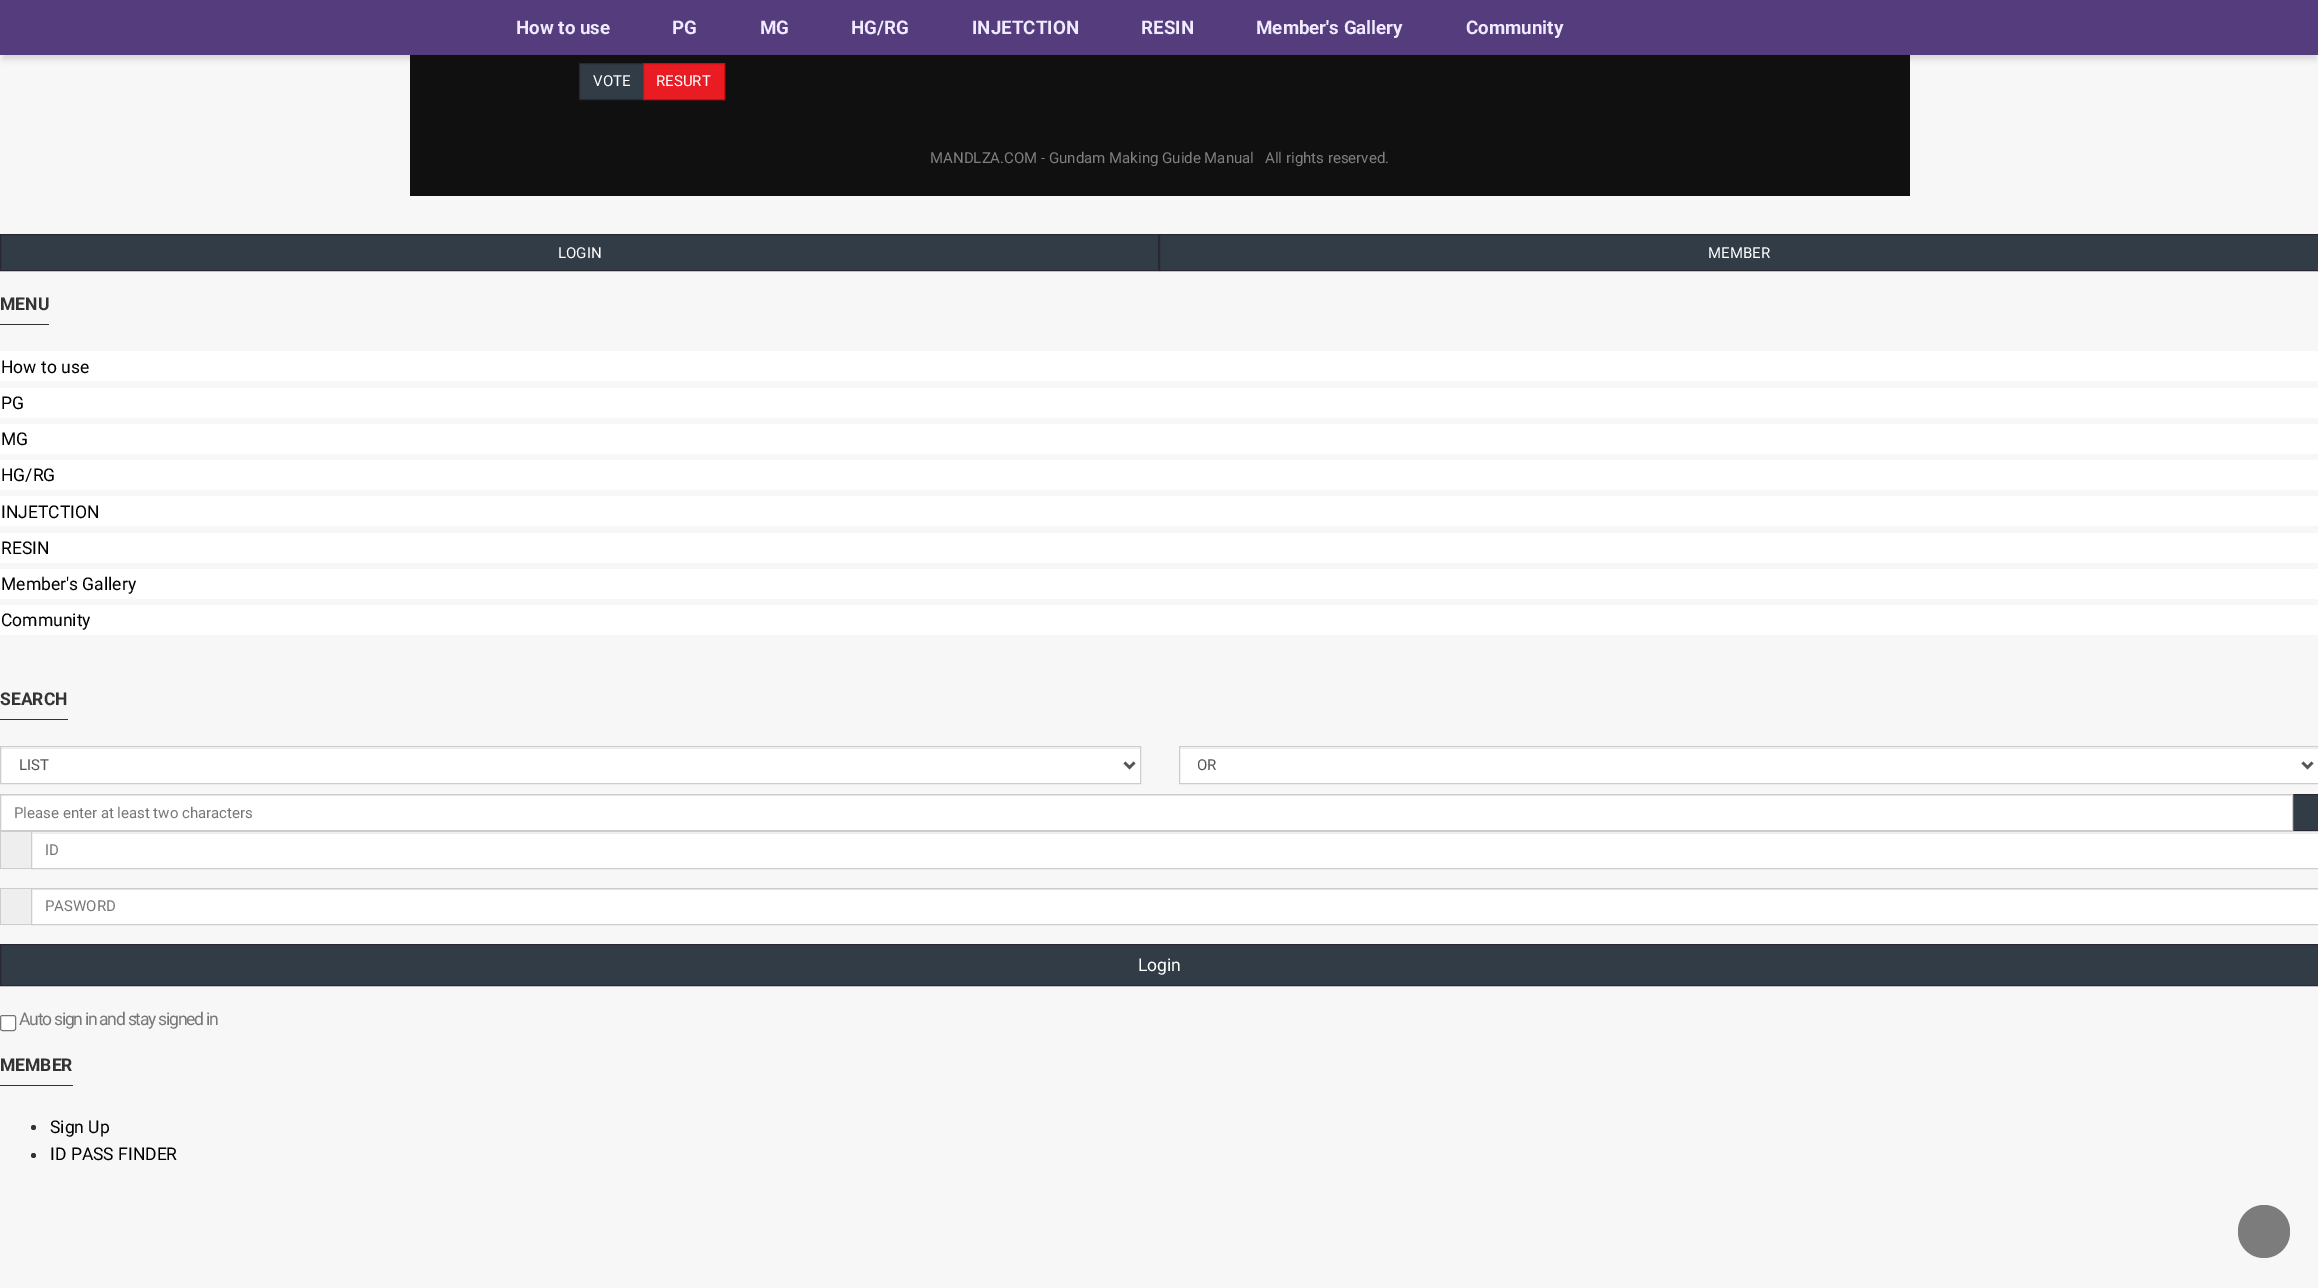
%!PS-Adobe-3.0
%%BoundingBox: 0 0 2318 1288
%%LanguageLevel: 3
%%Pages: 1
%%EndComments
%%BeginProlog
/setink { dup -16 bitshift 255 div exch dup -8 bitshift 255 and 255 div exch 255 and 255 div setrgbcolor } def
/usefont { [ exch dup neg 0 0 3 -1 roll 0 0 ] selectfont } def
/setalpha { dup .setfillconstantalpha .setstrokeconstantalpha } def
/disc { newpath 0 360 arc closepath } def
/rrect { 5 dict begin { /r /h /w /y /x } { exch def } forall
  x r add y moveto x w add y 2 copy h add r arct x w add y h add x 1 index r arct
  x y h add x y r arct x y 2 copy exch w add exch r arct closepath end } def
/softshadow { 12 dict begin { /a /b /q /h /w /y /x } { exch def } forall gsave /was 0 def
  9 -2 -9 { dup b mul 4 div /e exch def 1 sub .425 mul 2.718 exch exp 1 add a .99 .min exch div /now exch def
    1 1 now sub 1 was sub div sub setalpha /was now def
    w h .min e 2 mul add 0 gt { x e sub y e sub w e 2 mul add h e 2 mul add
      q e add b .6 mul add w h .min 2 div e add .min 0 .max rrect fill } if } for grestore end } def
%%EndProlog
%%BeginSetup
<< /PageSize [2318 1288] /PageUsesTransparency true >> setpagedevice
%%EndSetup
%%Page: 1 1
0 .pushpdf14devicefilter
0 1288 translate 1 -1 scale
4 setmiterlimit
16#F7F7F7 setink
0 0 2318 1288 rectfill
16#101010 setink
410 55 1500 141 rectfill
16#323C46 setink
579.5 63.5 moveto 643.5 63.5 lineto 643.5 99.5 lineto 579.5 99.5 lineto closepath gsave fill grestore
16#282832 setink
stroke
16#E91B23 setink
643.5 63.5 moveto 724.5 63.5 lineto 724.5 99.5 lineto 643.5 99.5 lineto closepath gsave fill grestore
16#D5070F setink
stroke
16#191919 setink
3 9 2313 50 0 3 0.15 softshadow
16#553C7D setink
0 0 2318 55 rectfill
/Roboto-Bold 18.75 usefont
16#EFEAFF setink
[
    [(How to use) 516 34]
    [(PG) 672 34]
    [(MG) 760 34]
    [(HG/RG) 851 34]
    [(INJETCTION) 972 34]
    [(RESIN) 1141 34]
    [(Member's Gallery) 1256 34]
    [(Community) 1466 34]
] { aload pop moveto show } forall
/Roboto-Regular 15 usefont
16#FFFFFF setink
593 86 moveto (VOTE) show
656 86 moveto (RESURT) show
16#7F7F7F setink
930 163 moveto (MANDLZA.COM - Gundam Making Guide Manual) show
1265 163 moveto (All rights reserved.) show
16#323C46 setink
0.5 234.5 moveto 1158.5 234.5 lineto 1158.5 270.5 lineto 0.5 270.5 lineto closepath gsave fill grestore
16#282832 setink
stroke
16#FFFFFF setink
558 258 moveto (LOGIN) show
16#323C46 setink
1159.5 234.5 moveto 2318.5 234.5 lineto 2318.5 270.5 lineto 1159.5 270.5 lineto closepath gsave fill grestore
16#282832 setink
stroke
16#FFFFFF setink
1708 258 moveto (MEMBER) show
16#333333 setink
0 324 49 1 rectfill
/Roboto-Bold 17.5 usefont
0 310 moveto (MENU) show
16#FFFFFF setink
0 351 2318 30 rectfill
/Roboto-Regular 17.5 usefont
16#000000 setink
1 373 moveto (How to use) show
16#FFFFFF setink
0 388 2318 30 rectfill
16#000000 setink
1 409 moveto (PG) show
16#FFFFFF setink
0 424 2318 30 rectfill
16#000000 setink
1 445 moveto (MG) show
16#FFFFFF setink
0 460 2318 30 rectfill
16#000000 setink
1 481 moveto (HG/RG) show
16#FFFFFF setink
0 496 2318 30 rectfill
16#000000 setink
1 518 moveto (INJETCTION) show
16#FFFFFF setink
0 533 2318 30 rectfill
16#000000 setink
1 554 moveto (RESIN) show
16#FFFFFF setink
0 569 2318 30 rectfill
16#000000 setink
1 590 moveto (Member's Gallery) show
16#FFFFFF setink
0 605 2318 30 rectfill
16#000000 setink
1 626 moveto (Community) show
16#333333 setink
0 719 68 1 rectfill
/Roboto-Bold 17.5 usefont
0 705 moveto (SEARCH) show
16#FFFFFF setink
1 747 1139 36 rectfill
16#ECECEC setink
1 748 1139 1 rectfill
16#CCCCCC setink
0.5 746.5 1140 37 rectstroke
16#555555 setink
2.5 setlinewidth
1124.5 762.5 moveto 1129.5 767.5 lineto 1134.5 762.5 lineto stroke
/Roboto-Regular 15 usefont
19 770 moveto (LIST) show
16#FFFFFF setink
1180 747 1138 36 rectfill
16#ECECEC setink
1180 748 1138 1 rectfill
16#CCCCCC setink
1 setlinewidth
1179.5 746.5 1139 37 rectstroke
16#555555 setink
2.5 setlinewidth
2302.5 762.5 moveto 2307.5 767.5 lineto 2312.5 762.5 lineto stroke
gsave
1198 755 1087 20 rectclip
1197 770 moveto (OR) show
grestore
16#323C46 setink
2293 795 25 35 rectfill
16#282832 setink
1 setlinewidth
2291.5 794.5 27 36 rectstroke
16#FFFFFF setink
1 795 2291 35 rectfill
16#ECECEC setink
1 795 2290 1 rectfill
16#CCCCCC setink
0.5 794.5 2292 36 rectstroke
16#777777 setink
14 818 moveto (Please enter at least two characters) show
[
    [1 832 30 36 16#EEEEEE]
    [0 831 31 1 16#CCCCCC]
    [0 868 31 1 16#CCCCCC]
    [0 831 1 38 16#CCCCCC]
    [32 832 2286 36 16#FFFFFF]
    [33 833 2285 1 16#ECECEC]
] { aload pop setink rectfill } forall
16#CCCCCC setink
31.5 831.5 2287 37 rectstroke
16#777777 setink
45 855 moveto (ID) show
[
    [1 889 30 35 16#EEEEEE]
    [0 888 31 1 16#CCCCCC]
    [0 924 31 1 16#CCCCCC]
    [0 888 1 37 16#CCCCCC]
    [32 889 2286 35 16#FFFFFF]
    [33 889 2285 1 16#ECECEC]
] { aload pop setink rectfill } forall
16#CCCCCC setink
31.5 888.5 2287 36 rectstroke
16#777777 setink
45 911 moveto (PASWORD) show
16#323C46 setink
0.5 944.5 moveto 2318.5 944.5 lineto 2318.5 985.5 lineto 0.5 985.5 lineto closepath gsave fill grestore
16#282832 setink
stroke
/Roboto-Regular 17.5 usefont
16#FFFFFF setink
1138 971 moveto (Login) show
0.5 1015.5 15 15 2 rrect gsave fill grestore
16#767676 setink
stroke
16#777777 setink
19 1025 moveto -1.25 0 (Auto sign in and stay signed in) ashow
16#333333 setink
0 1085 73 1 rectfill
/Roboto-Bold 17.5 usefont
0 1071 moveto (MEMBER) show
33.5 1127.5 2.5 disc fill
/Roboto-Regular 17.5 usefont
16#000000 setink
50 1133 moveto (Sign Up) show
16#333333 setink
33.5 1155.5 2.5 disc fill
16#000000 setink
50 1160 moveto (ID PASS FINDER) show
16#7C7C7C setink
2238 1205 52 53 26 rrect fill
.poppdf14devicefilter showpage
%%EOF
